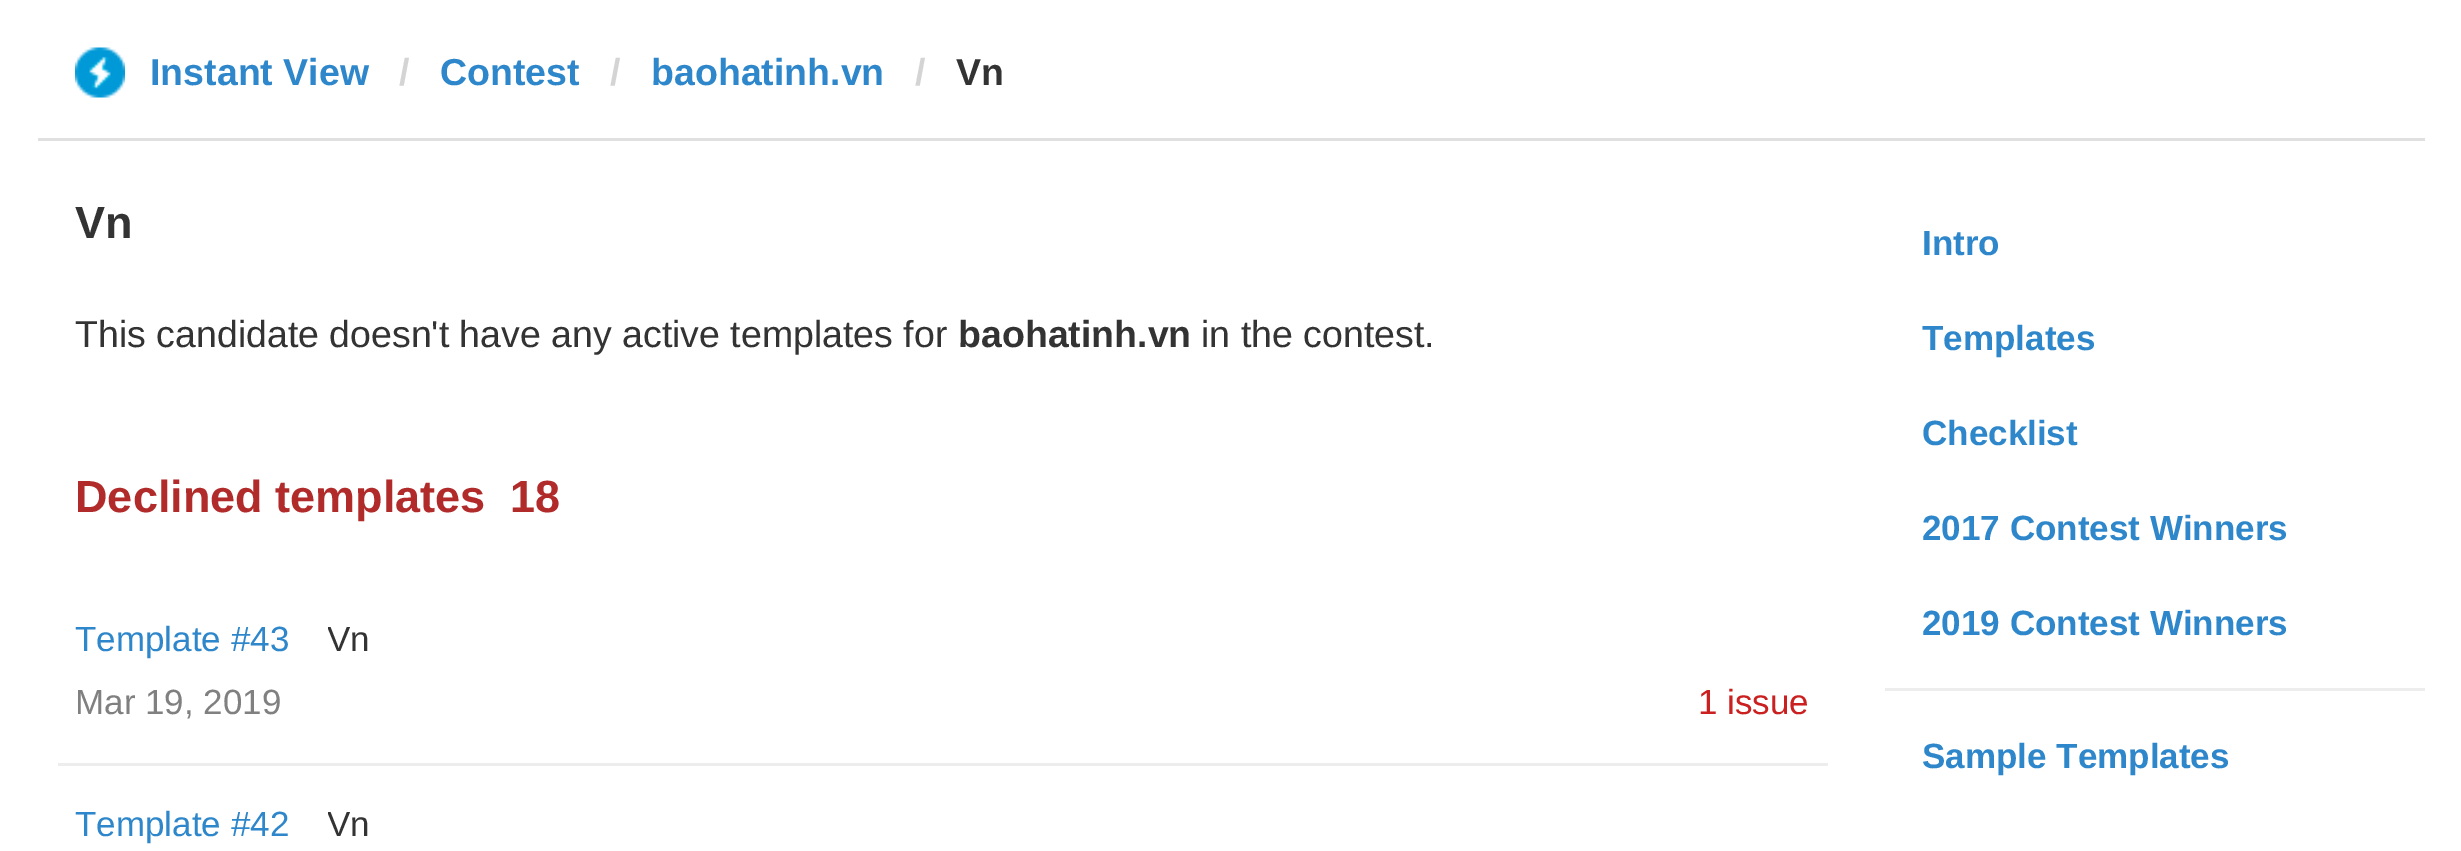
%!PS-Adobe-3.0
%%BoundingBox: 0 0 2461 851
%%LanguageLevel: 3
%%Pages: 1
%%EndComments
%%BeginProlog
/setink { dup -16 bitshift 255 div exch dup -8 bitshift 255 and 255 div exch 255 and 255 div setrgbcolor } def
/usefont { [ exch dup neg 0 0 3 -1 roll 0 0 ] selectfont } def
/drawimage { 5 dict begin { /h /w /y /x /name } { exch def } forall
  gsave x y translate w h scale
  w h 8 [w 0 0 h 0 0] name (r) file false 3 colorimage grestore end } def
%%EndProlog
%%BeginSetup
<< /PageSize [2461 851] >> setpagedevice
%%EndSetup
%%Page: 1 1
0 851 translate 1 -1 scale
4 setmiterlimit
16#FFFFFF setink
0 0 2461 851 rectfill
16#E0E0E0 setink
38 138 2387 3 rectfill
(img1.raw) 75 47 50 51 drawimage
/LiberationSans-Bold 37.5 usefont
16#2E87CA setink
150 85 moveto (Instant View) show
16#D4D4D4 setink
399 85 moveto (/) show
16#2E87CA setink
440 85 moveto (Contest) show
16#D4D4D4 setink
610 85 moveto (/) show
16#2E87CA setink
651 85 moveto (baohatinh.vn) show
16#D4D4D4 setink
915 85 moveto (/) show
16#333333 setink
956 85 moveto (Vn) show
/LiberationSans-Bold 45 usefont
75 238 moveto (Vn) show
/LiberationSans-Regular 37.5 usefont
75 347 moveto (This candidate doesn't have any active templates for) show
/LiberationSans-Bold 37.5 usefont
958 347 moveto (baohatinh.vn) show
/LiberationSans-Regular 37.5 usefont
1201 347 moveto (in the contest.) show
/LiberationSans-Bold 45 usefont
16#B12B2B setink
75 512 moveto (Declined templates) show
510 512 moveto (18) show
16#EDEDED setink
58 763 1770 3 rectfill
/LiberationSans-Regular 35 usefont
16#2E87CA setink
75 651 moveto (Template #43) show
gsave
328 618 1445 45 rectclip
16#333333 setink
327 651 moveto (Vn) show
grestore
16#808080 setink
75 714 moveto (Mar 19, 2019) show
16#CB2020 setink
1698 714 moveto (1 issue) show
16#2E87CA setink
75 836 moveto (Template #42) show
gsave
328 803 1445 45 rectclip
16#333333 setink
327 836 moveto (Vn) show
grestore
/LiberationSans-Bold 35 usefont
[
    [(Intro) 1922 255]
    [(Templates) 1922 350]
    [(Checklist) 1922 445]
    [(2017 Contest Winners) 1922 540]
    [(2019 Contest Winners) 1922 635]
] { aload pop moveto show } forall
16#EDEDED setink
1885 688 540 3 rectfill
16#2E87CA setink
1922 768 moveto (Sample Templates) show
showpage
%%EOF
